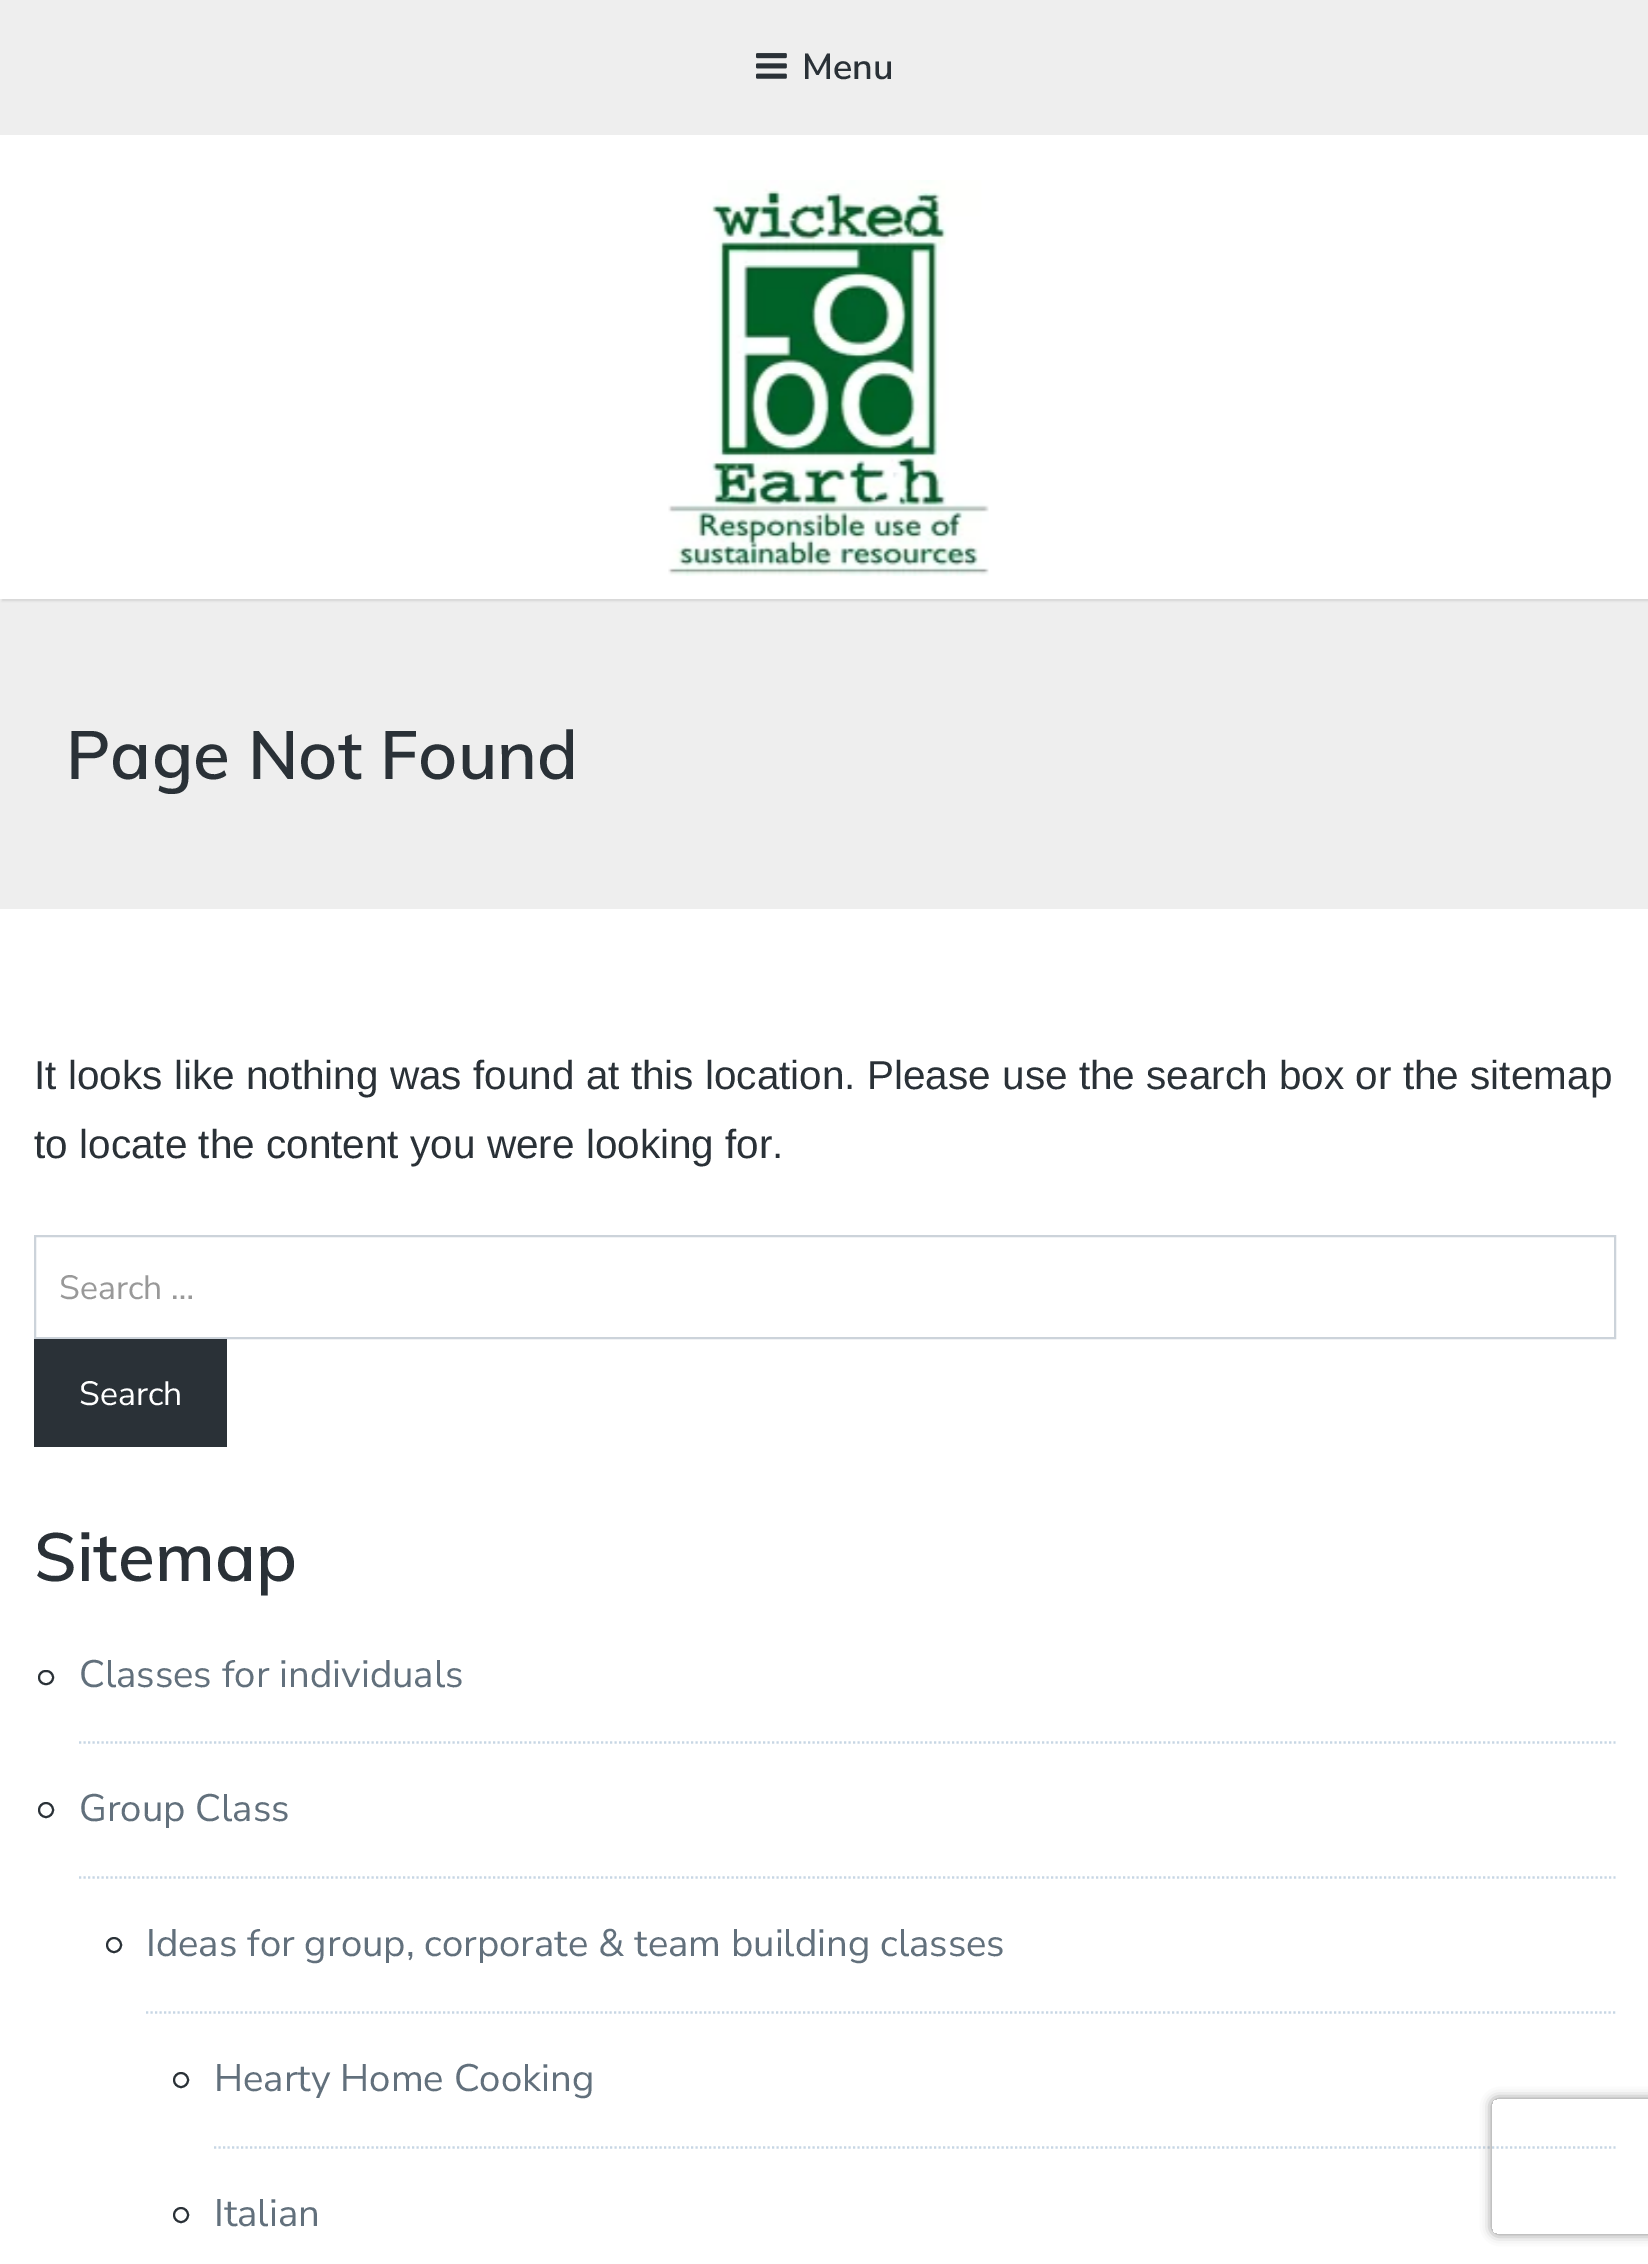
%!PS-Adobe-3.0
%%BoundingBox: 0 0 1648 2264
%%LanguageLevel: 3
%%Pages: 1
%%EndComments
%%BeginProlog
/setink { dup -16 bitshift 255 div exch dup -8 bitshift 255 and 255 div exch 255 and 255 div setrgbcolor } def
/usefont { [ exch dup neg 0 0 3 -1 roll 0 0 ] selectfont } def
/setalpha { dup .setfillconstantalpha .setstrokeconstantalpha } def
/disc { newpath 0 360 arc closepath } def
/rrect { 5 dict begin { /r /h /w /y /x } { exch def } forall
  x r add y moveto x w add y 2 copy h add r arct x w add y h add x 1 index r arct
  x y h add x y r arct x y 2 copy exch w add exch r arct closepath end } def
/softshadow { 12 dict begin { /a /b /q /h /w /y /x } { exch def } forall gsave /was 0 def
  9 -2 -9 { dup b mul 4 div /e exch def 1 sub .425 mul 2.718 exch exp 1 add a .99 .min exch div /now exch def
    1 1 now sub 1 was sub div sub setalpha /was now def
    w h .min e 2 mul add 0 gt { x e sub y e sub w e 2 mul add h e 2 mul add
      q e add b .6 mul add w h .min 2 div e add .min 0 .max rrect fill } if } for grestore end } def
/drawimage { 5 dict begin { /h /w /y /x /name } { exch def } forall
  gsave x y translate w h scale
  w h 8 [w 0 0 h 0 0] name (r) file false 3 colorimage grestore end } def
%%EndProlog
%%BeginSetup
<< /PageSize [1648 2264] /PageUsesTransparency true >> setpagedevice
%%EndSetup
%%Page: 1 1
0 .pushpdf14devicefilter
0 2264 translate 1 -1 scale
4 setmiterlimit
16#EEEEEE setink
0 0 1648 2264 rectfill
(img1.raw) 756 53 31 26 drawimage
/NunitoSans-SemiBold 36 usefont
16#2A3137 setink
802 79 moveto (Menu) show
16#000000 setink
2 137 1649 464 0 1 0.1 softshadow
16#FFFFFF setink
0 135 1648 464 rectfill
(img2.raw) 668 180 321 396 drawimage
/Muli-SemiBold 67.5 usefont
16#2A3137 setink
66 779 moveto (Page Not Found) show
16#FFFFFF setink
0 909 1648 1355 rectfill
/LiberationSans-Regular 40.5 usefont
16#2A3137 setink
34 1089 moveto (It looks like nothing was found at this location. Please use the search box or the sitemap) show
34 1158 moveto (to locate the content you were looking for.) show
16#CCD3DA setink
2 setlinewidth
35 1236 1580 102 rectstroke
/NunitoSans-Regular 33.75 usefont
16#999999 setink
59 1299 moveto (Search …) show
16#2A3137 setink
34 1339 193 108 rectfill
16#FFFFFF setink
79 1405 moveto (Search) show
/Muli-SemiBold 67.5 usefont
16#2A3137 setink
34 1581 moveto (Sitemap) show
39 1671 14 13 6.5 rrect stroke
16#C7D6E4 setink
2.2 setlinewidth
[2.25 2.25] 0 setdash
79 1742.5 moveto 1615.5 1742.5 lineto stroke
/NunitoSans-Regular 38.25 usefont
16#62707C setink
79 1687 moveto (Classes for individuals) show
16#2A3137 setink
2 setlinewidth
[] 0 setdash
46 1810 7 disc stroke
16#C7D6E4 setink
2.2 setlinewidth
[2.25 2.25] 0 setdash
79 1877.5 moveto 1615.5 1877.5 lineto stroke
16#62707C setink
79 1821 moveto (Group Class) show
16#2A3137 setink
2 setlinewidth
[] 0 setdash
114 1945 7 disc stroke
16#C7D6E4 setink
2.2 setlinewidth
[2.25 2.25] 0 setdash
146 2012.5 moveto 1615.5 2012.5 lineto stroke
16#62707C setink
146 1956 moveto (Ideas for group, corporate & team building classes) show
16#2A3137 setink
2 setlinewidth
[] 0 setdash
181 2080 7 disc stroke
16#C7D6E4 setink
2.2 setlinewidth
[2.25 2.25] 0 setdash
214 2147.5 moveto 1615.5 2147.5 lineto stroke
16#62707C setink
214 2091 moveto (Hearty Home Cooking) show
16#2A3137 setink
2 setlinewidth
[] 0 setdash
181 2215 7 disc stroke
16#62707C setink
214 2226 moveto (Italian) show
gsave
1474 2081 moveto 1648 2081 lineto 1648 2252 lineto 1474 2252 lineto closepath 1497 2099 moveto 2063 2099 lineto 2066 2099 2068 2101 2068 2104 curveto 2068 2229 lineto 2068 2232 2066 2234 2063 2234 curveto 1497 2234 lineto 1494 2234 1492 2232 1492 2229 curveto 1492 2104 lineto 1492 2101 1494 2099 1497 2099 curveto closepath eoclip newpath
16#808080 setink
1492 2099 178 135 5 5.5 1 softshadow
grestore
.poppdf14devicefilter showpage
%%EOF
